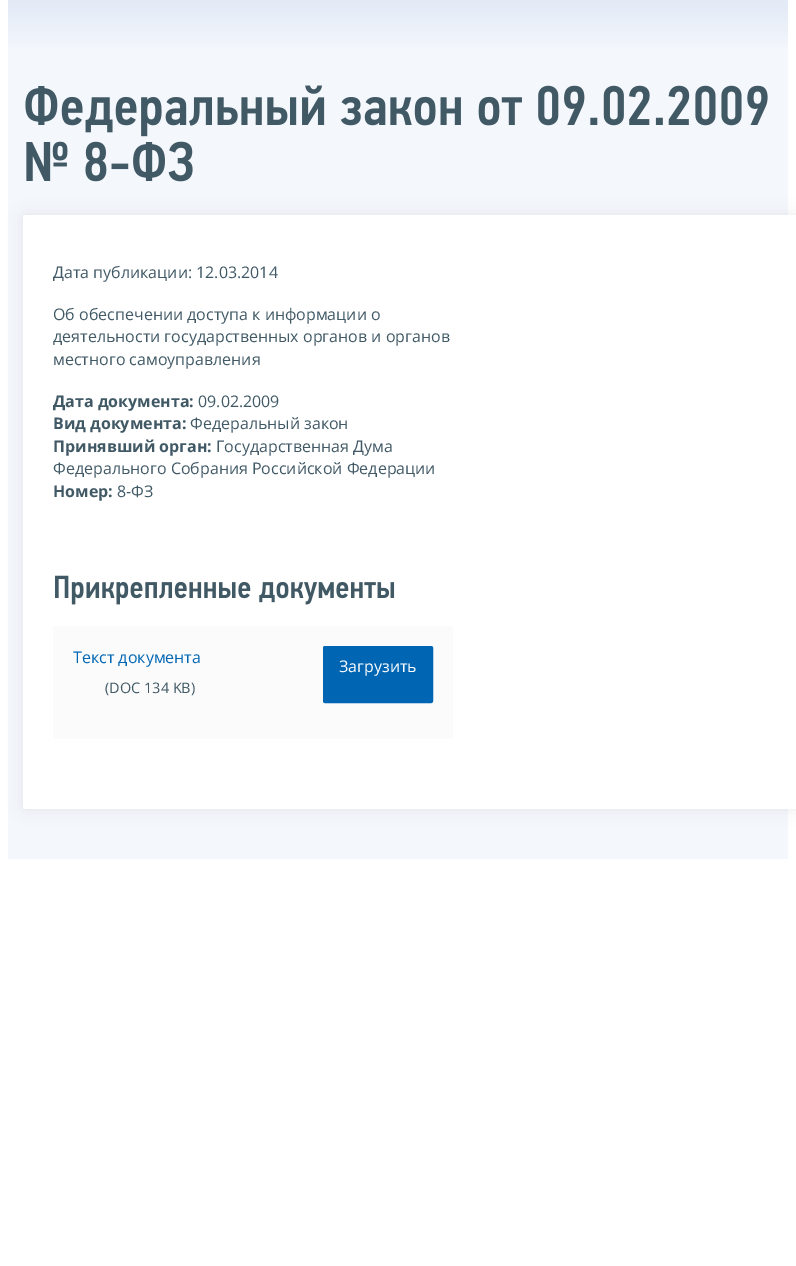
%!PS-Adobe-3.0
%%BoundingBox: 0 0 796 1266
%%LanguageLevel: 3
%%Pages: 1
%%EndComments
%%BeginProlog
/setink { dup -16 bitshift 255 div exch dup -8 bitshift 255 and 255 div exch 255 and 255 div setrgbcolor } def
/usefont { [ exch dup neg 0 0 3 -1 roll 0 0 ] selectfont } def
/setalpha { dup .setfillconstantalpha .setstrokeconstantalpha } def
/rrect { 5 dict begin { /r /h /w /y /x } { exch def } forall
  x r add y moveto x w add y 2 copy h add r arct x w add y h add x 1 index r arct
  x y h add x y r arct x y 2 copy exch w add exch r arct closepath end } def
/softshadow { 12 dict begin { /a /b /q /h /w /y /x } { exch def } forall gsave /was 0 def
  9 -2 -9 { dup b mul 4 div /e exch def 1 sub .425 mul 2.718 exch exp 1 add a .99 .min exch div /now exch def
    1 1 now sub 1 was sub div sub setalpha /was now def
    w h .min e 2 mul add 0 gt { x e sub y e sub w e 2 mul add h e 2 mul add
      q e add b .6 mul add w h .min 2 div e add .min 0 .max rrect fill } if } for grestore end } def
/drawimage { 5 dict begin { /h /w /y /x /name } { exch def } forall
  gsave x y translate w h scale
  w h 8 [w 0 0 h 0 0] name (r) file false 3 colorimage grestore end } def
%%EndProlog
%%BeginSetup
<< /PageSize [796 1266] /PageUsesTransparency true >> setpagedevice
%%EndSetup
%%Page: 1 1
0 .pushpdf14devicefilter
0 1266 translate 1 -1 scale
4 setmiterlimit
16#FFFFFF setink
0 0 796 1266 rectfill
16#F4F7FC setink
8 50 780 809 rectfill
gsave 8 0 moveto 788 0 lineto 788 50 lineto 8 50 lineto closepath clip newpath
<< /ShadingType 2 /ColorSpace /DeviceRGB /Coords [398 0 398 50] /Extend [true true] /Function << /FunctionType 2 /Domain [0 1] /C0 [0.886 0.918 0.965] /C1 [0.957 0.969 0.988] /N 1 >> >> shfill grestore
(img1.raw) 25 85 743 52 drawimage
(img2.raw) 26 141 167 41 drawimage
16#000000 setink
23 215 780 594 2 7.5 0.07 softshadow
16#FFFFFF setink
23 215 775 594 2 rrect fill
/OpenSans-Regular 16 usefont
16#405965 setink
[
    [(Дата публикации: 12.03.2014) 53 278]
    [(Об обеспечении доступа к информации о) 53 320]
    [(деятельности государственных органов и органов) 53 342]
    [(местного самоуправления) 53 365]
] { aload pop moveto show } forall
/OpenSans-Bold 16 usefont
53 407 moveto (Дата документа:) show
/OpenSans-Regular 16 usefont
198 407 moveto (09.02.2009) show
/OpenSans-Bold 16 usefont
53 429 moveto (Вид документа:) show
/OpenSans-Regular 16 usefont
190 429 moveto (Федеральный закон) show
/OpenSans-Bold 16 usefont
53 452 moveto (Принявший орган:) show
/OpenSans-Regular 16 usefont
216 452 moveto (Государственная Дума) show
53 474 moveto (Федерального Собрания Российской Федерации) show
/OpenSans-Bold 16 usefont
53 497 moveto (Номер:) show
/OpenSans-Regular 16 usefont
117 497 moveto (8-ФЗ) show
(img3.raw) 55 575 340 30 drawimage
16#FBFBFB setink
53 626 400 113 2 rrect fill
16#0066B3 setink
73 663 moveto (Текст документа) show
/OpenSans-Regular 14.5 usefont
16#405965 setink
105 693 moveto (\(DOC 134 KB\)) show
16#0066B3 setink
323.5 646.5 109 56 1.5 rrect gsave fill grestore
stroke
/OpenSans-Regular 16 usefont
16#FFFFFF setink
339 672 moveto (Загрузить) show
.poppdf14devicefilter showpage
%%EOF
